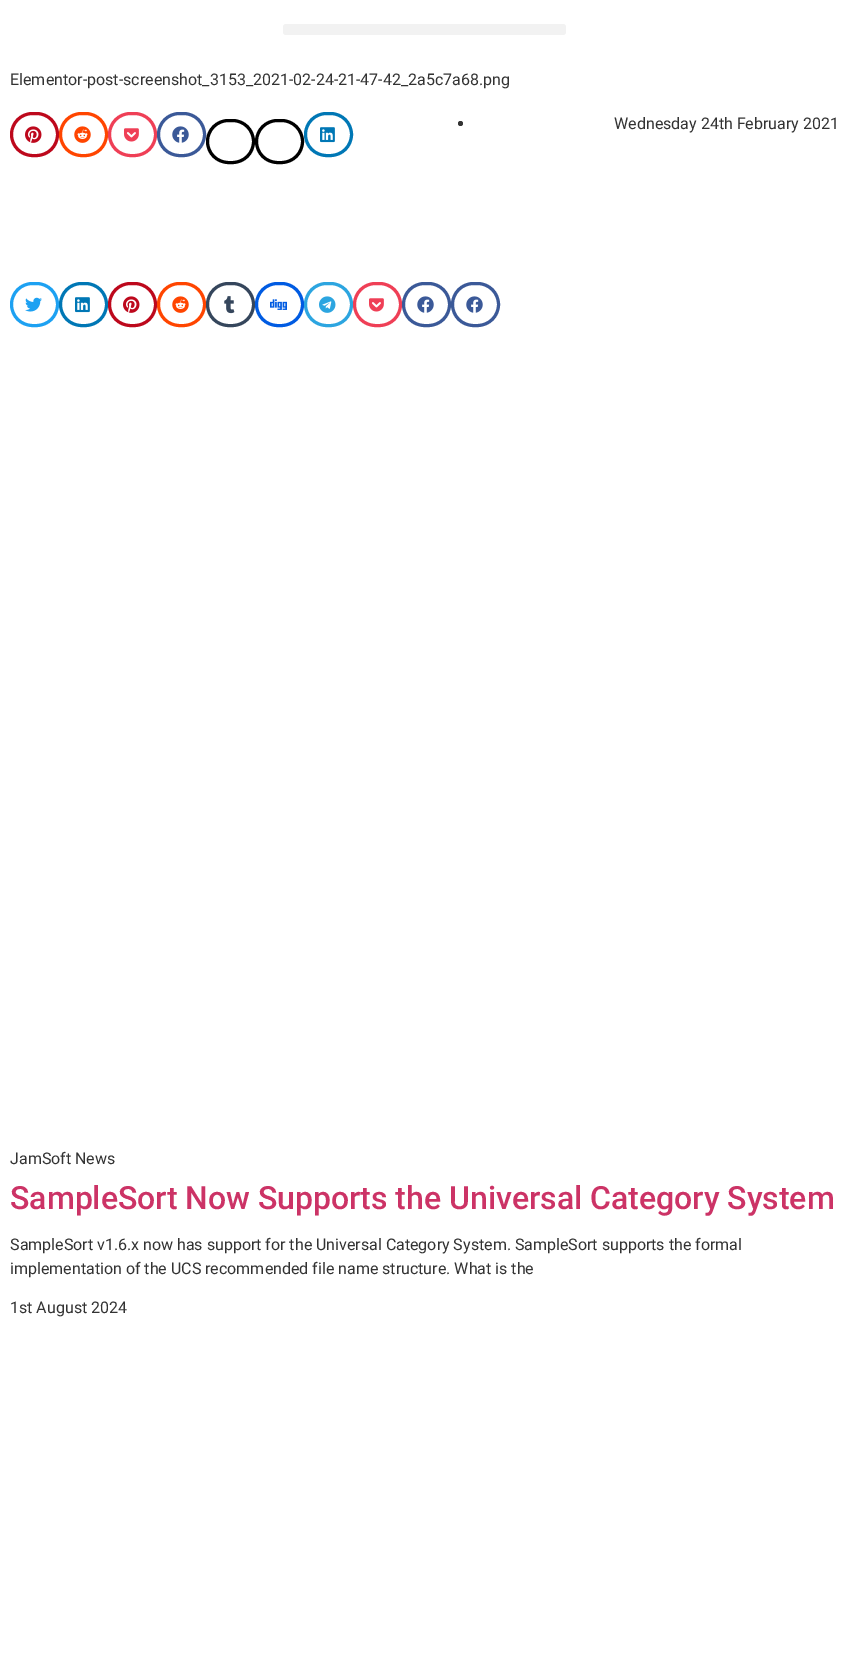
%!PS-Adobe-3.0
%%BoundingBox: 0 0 849 1660
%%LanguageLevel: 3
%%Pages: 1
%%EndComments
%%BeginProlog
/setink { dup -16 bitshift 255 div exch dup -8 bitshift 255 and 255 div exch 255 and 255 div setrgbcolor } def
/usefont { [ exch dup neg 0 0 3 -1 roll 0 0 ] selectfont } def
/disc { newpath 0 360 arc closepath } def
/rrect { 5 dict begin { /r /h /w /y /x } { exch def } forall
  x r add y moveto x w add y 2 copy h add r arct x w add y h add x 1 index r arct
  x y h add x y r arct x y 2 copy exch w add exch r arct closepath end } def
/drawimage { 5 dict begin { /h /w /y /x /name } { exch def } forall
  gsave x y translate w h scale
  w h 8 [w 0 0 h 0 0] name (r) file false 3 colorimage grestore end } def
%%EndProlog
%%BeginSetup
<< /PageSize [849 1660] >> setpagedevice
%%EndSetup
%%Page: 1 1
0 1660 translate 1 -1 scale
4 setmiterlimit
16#FFFFFF setink
0 0 849 1660 rectfill
16#F2F2F2 setink
283 24 283 11 3 rrect fill
/Roboto-Regular 16 usefont
16#333333 setink
10 85 moveto (Elementor-post-screenshot_3153_2021-02-24-21-47-42_2a5c7a68.png) show
16#BD081C setink
3 setlinewidth
11.5 113.5 46 42 21 rrect stroke
(img1.raw) 25 126 17 17 drawimage
16#FF4500 setink
60.5 113.5 46 42 21 rrect stroke
(img2.raw) 74 126 17 17 drawimage
16#EF3F56 setink
109.5 113.5 46 42 21 rrect stroke
(img3.raw) 124 128 15 14 drawimage
16#3B5998 setink
158.5 113.5 46 42 21 rrect stroke
(img4.raw) 172 126 17 17 drawimage
16#000000 setink
207.5 120.5 46 42 21 rrect stroke
256.5 120.5 46 42 21 rrect stroke
16#0077B5 setink
305.5 113.5 46 42 21 rrect stroke
(img5.raw) 320 127 15 16 drawimage
16#333333 setink
460.5 123.5 2.5 disc fill
614 129 moveto (Wednesday 24th February 2021) show
16#1DA1F2 setink
11.5 283.5 46 42 21 rrect stroke
(img6.raw) 25 297 17 15 drawimage
16#0077B5 setink
60.5 283.5 46 42 21 rrect stroke
(img5.raw) 75 297 15 16 drawimage
16#BD081C setink
109.5 283.5 46 42 21 rrect stroke
(img1.raw) 123 296 17 17 drawimage
16#FF4500 setink
158.5 283.5 46 42 21 rrect stroke
(img2.raw) 172 296 17 17 drawimage
16#35465C setink
207.5 283.5 46 42 21 rrect stroke
(img7.raw) 224 296 11 18 drawimage
16#005BE2 setink
256.5 283.5 46 42 21 rrect stroke
(img8.raw) 270 299 17 11 drawimage
16#2CA5E0 setink
305.5 283.5 46 42 21 rrect stroke
(img9.raw) 319 296 17 17 drawimage
16#EF3F56 setink
354.5 283.5 46 42 21 rrect stroke
(img3.raw) 369 298 15 14 drawimage
16#3B5998 setink
403.5 283.5 46 42 21 rrect stroke
(img4.raw) 417 296 17 17 drawimage
452.5 283.5 46 42 21 rrect stroke
(img4.raw) 466 296 17 17 drawimage
16#333333 setink
10 1164 moveto (JamSoft News) show
/Roboto-Medium 32 usefont
16#CC3366 setink
10 1209 moveto (SampleSort Now Supports the Universal Category System) show
/Roboto-Regular 16 usefont
16#333333 setink
[
    [(SampleSort v1.6.x now has support for the Universal Category System. SampleSort supports the formal) 10 1250]
    [(implementation of the UCS recommended file name structure. What is the) 10 1274]
    [(1st August 2024) 10 1313]
] { aload pop moveto show } forall
showpage
%%EOF
